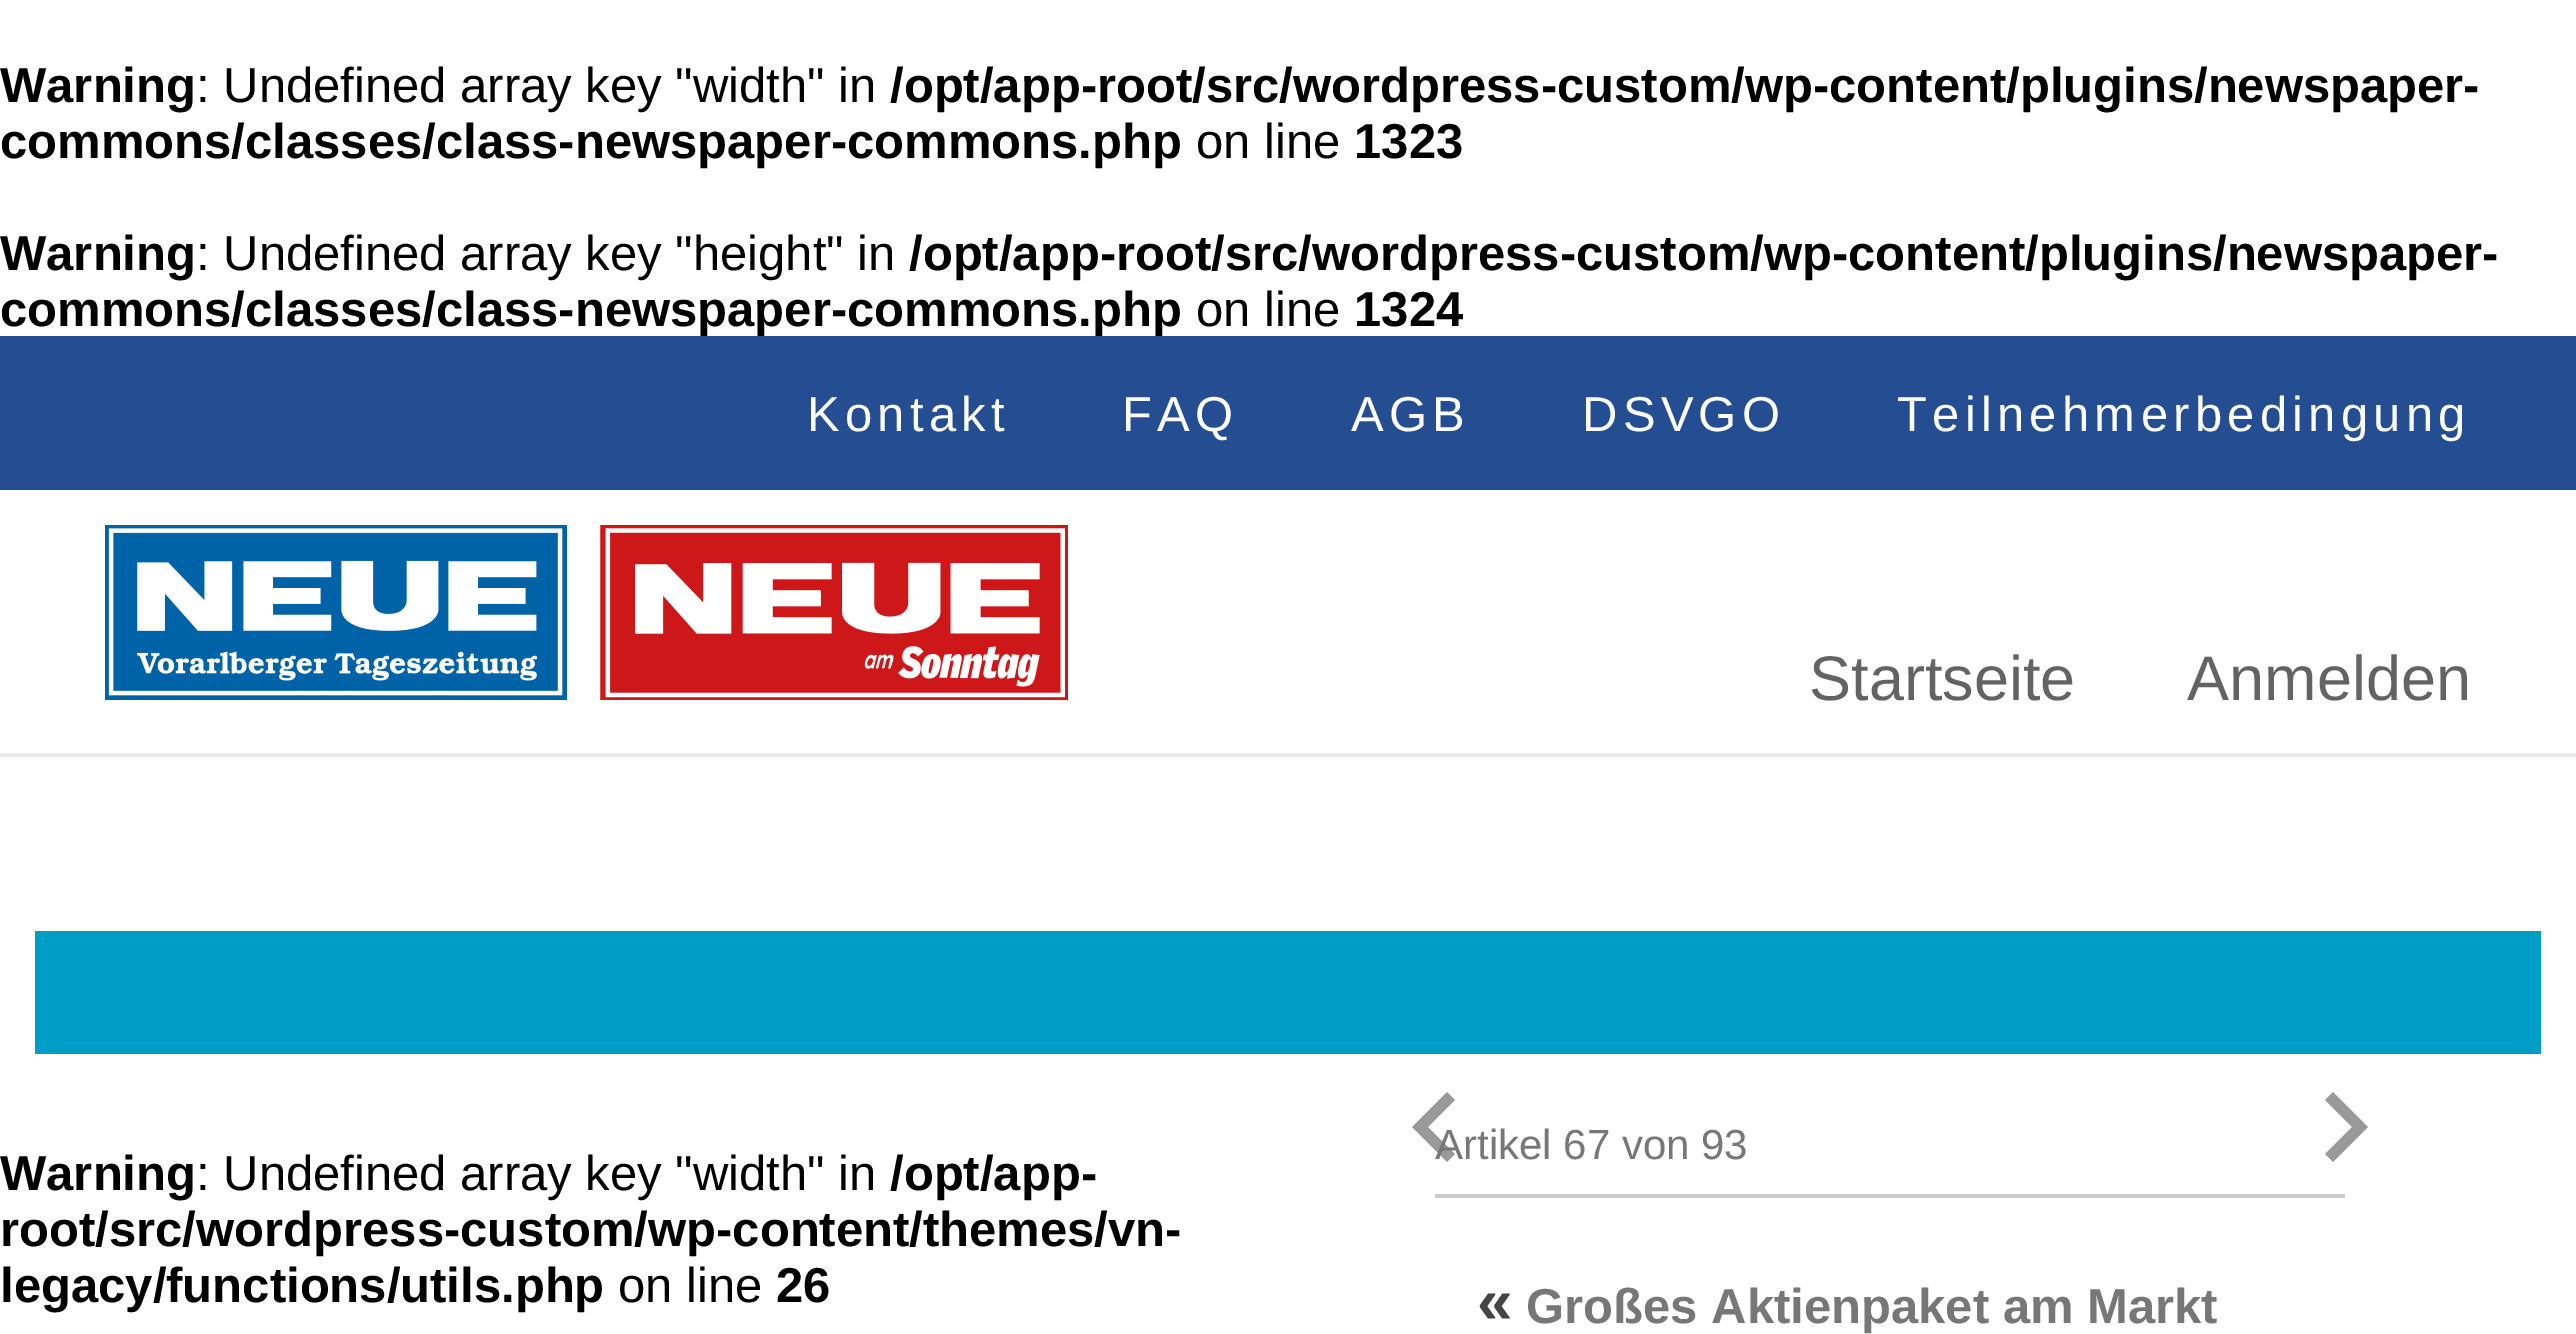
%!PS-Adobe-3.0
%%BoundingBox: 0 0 2576 1334
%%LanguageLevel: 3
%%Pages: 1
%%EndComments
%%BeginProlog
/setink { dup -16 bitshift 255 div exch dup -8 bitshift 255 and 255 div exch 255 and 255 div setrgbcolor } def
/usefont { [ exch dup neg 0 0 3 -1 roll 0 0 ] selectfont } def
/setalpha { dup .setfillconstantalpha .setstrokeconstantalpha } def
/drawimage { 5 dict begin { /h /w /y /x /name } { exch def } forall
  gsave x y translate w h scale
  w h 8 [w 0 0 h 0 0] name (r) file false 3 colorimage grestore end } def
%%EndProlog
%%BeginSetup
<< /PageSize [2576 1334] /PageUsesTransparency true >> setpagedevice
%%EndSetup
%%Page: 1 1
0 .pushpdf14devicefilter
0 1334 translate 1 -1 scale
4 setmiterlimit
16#FFFFFF setink
0 0 2576 1334 rectfill
/LiberationSans-Bold 49 usefont
16#000000 setink
0 102 moveto (Warning) show
/LiberationSans-Regular 49 usefont
196 102 moveto (: Undefined array key "width" in) show
/LiberationSans-Bold 49 usefont
890 102 moveto (/opt/app-root/src/wordpress-custom/wp-content/plugins/newspaper-) show
0 158 moveto (commons/classes/class-newspaper-commons.php) show
/LiberationSans-Regular 49 usefont
1196 158 moveto (on line) show
/LiberationSans-Bold 49 usefont
1354 158 moveto (1323) show
0 270 moveto (Warning) show
/LiberationSans-Regular 49 usefont
196 270 moveto (: Undefined array key "height" in) show
/LiberationSans-Bold 49 usefont
909 270 moveto (/opt/app-root/src/wordpress-custom/wp-content/plugins/newspaper-) show
16#244D92 setink
0 336 2576 154 rectfill
16#000000 setink
0 326 moveto (commons/classes/class-newspaper-commons.php) show
/LiberationSans-Regular 49 usefont
1196 326 moveto (on line) show
/LiberationSans-Bold 49 usefont
1354 326 moveto (1324) show
16#E9E9E9 setink
0 753 2576 4 rectfill
16#244D92 setink
700 336 462 1 rectfill
/LiberationSans-Regular 49 usefont
16#FFFFFF setink
807 431 moveto 5.25 0 (Kontakt) ashow
1122 431 moveto 5.25 0 (FAQ) ashow
1351 431 moveto 5.25 0 (AGB) ashow
1582 431 moveto 5.25 0 (DSVGO) ashow
1897 431 moveto 5.25 0 (Teilnehmerbedingung) ashow
(img1.raw) 105 525 963 175 drawimage
/LiberationSans-Regular 63 usefont
16#636363 setink
1809 700 moveto (Startseite) show
2187 700 moveto (Anmelden) show
16#009DC6 setink
35 931 2506 123 rectfill
/LiberationSans-Bold 49 usefont
16#000000 setink
0 1190 moveto (Warning) show
/LiberationSans-Regular 49 usefont
196 1190 moveto (: Undefined array key "width" in) show
/LiberationSans-Bold 49 usefont
[
    [(/opt/app-) 890 1190]
    [(root/src/wordpress-custom/wp-content/themes/vn-) 0 1246]
    [(legacy/functions/utils.php) 0 1302]
] { aload pop moveto show } forall
/LiberationSans-Regular 49 usefont
618 1302 moveto (on line) show
/LiberationSans-Bold 49 usefont
776 1302 moveto (26) show
/LiberationSans-Regular 42 usefont
16#777777 setink
1435 1159 moveto (Artikel 67 von 93) show
0.75 setalpha
1455 1154 moveto 1428 1127 lineto 1455 1100 lineto 1447 1092 lineto 1412 1127 lineto 1447 1162 lineto closepath fill
1 setalpha
16#999999 setink
2325 1154 moveto 2352 1127 lineto 2325 1100 lineto 2333 1092 lineto 2368 1127 lineto 2333 1162 lineto closepath fill
16#CCCCCC setink
1435 1194 910 4 rectfill
/LiberationSans-Bold 64 usefont
16#444444 setink
1477 1323 moveto («) show
/LiberationSans-Bold 49 usefont
16#777777 setink
1526 1323 moveto (Großes Aktienpaket am Markt) show
.poppdf14devicefilter showpage
%%EOF
